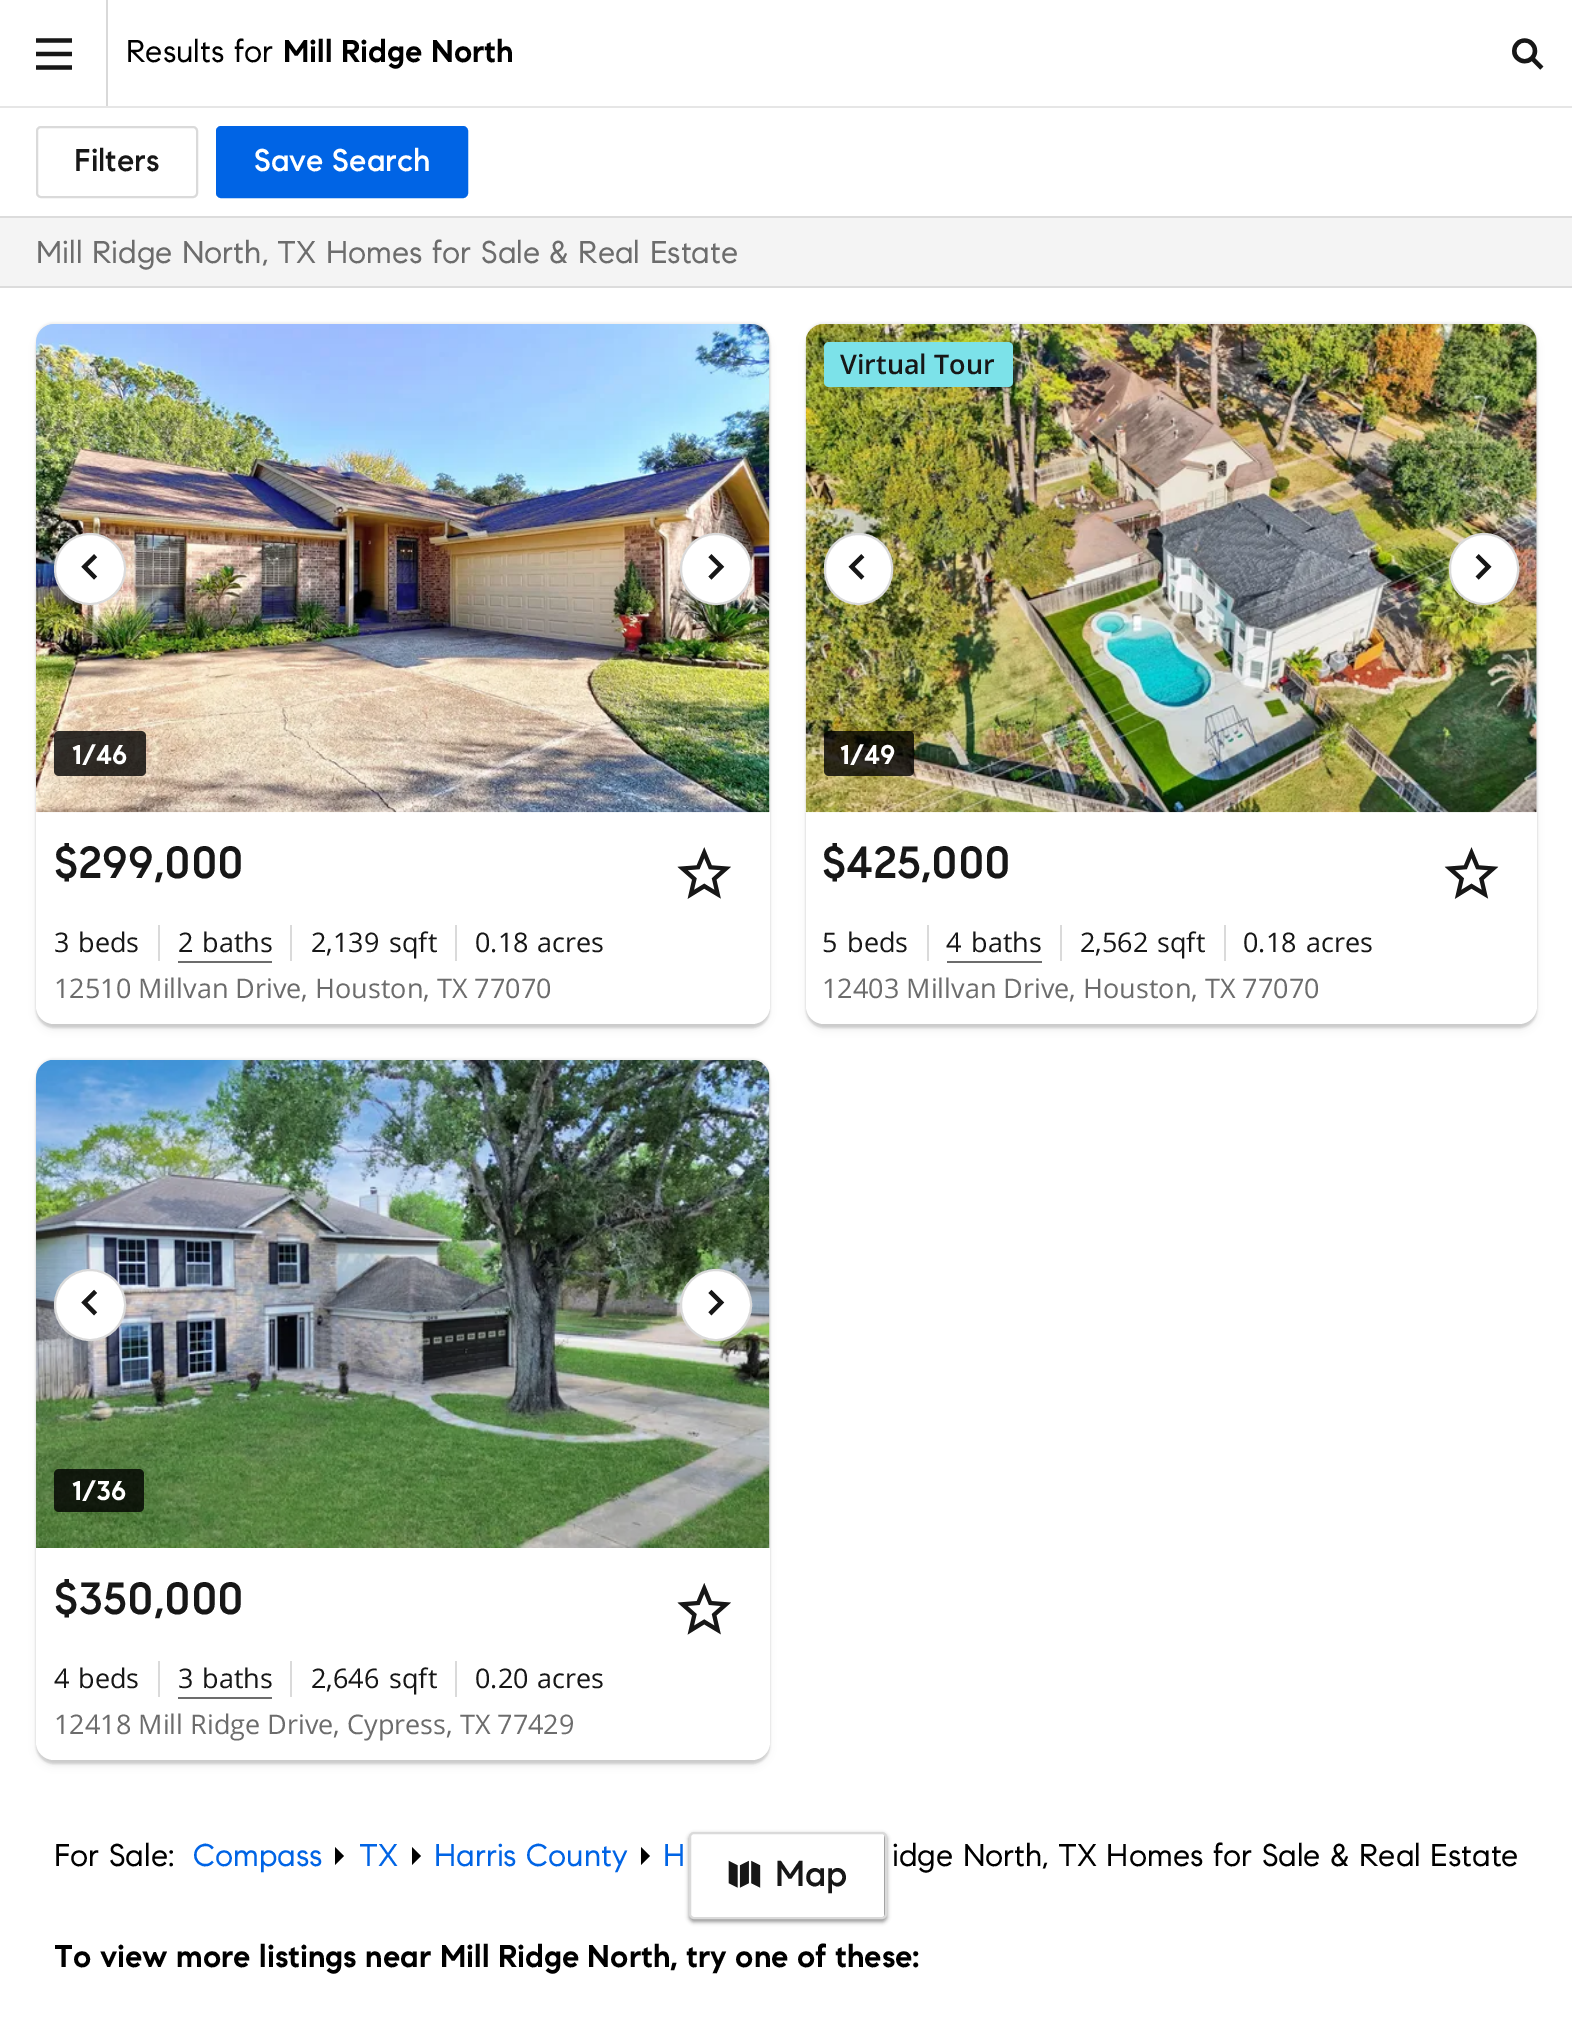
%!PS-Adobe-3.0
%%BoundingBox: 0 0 1572 2042
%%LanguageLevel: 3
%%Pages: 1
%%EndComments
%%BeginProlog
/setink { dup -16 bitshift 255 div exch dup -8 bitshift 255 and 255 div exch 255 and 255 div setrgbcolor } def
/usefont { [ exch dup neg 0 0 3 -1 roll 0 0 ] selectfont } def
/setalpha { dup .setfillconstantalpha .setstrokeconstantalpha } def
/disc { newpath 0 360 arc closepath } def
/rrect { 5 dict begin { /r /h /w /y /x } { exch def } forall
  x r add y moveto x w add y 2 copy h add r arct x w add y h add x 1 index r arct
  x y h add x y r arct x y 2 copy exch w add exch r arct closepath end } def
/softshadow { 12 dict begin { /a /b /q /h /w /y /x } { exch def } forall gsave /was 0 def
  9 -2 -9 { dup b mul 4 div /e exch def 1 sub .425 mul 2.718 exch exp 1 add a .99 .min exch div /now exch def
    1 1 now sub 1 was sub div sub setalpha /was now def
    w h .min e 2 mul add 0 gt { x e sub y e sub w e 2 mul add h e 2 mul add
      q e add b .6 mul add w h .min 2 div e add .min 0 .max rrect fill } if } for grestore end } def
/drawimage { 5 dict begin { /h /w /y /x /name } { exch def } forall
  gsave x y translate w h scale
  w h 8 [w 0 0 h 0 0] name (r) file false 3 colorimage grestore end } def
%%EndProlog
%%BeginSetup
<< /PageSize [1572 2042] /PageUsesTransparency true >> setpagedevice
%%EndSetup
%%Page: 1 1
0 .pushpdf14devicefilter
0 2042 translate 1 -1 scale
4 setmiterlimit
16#FFFFFF setink
0 0 1572 2042 rectfill
16#E6E6E6 setink
0 106 1572 2 rectfill
16#D9D9D9 setink
106 0 2 106 rectfill
(img1.raw) 36 38 36 32 drawimage
/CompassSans-Regular 31.5 usefont
16#000000 setink
126 62 moveto (Results for) show
/CompassSans-Bold 31.5 usefont
283 62 moveto (Mill Ridge North) show
(img2.raw) 1512 38 32 32 drawimage
16#DADADA setink
2 setlinewidth
37 127 160 70 4 rrect stroke
/CompassSans-Medium 31.5 usefont
16#171717 setink
74 171 moveto (Filters) show
16#0064E5 setink
218 128 248 68 2 rrect fill
217 127 250 70 4 rrect stroke
16#FFFFFF setink
254 171 moveto (Save Search) show
[
    [0 218 1572 68 16#F4F4F4]
    [0 216 1572 2 16#DCDCDC]
    [0 286 1572 2 16#DCDCDC]
] { aload pop setink rectfill } forall
/CompassSans-Regular 31.5 usefont
16#6C6C6C setink
36 263 moveto (Mill Ridge North, TX Homes for Sale & Real Estate) show
16#000000 setink
36 322 734 700 18 1 0.06 softshadow
36 329 734 699 18 1 0.14 softshadow
38 333 729 695 16 4.5 0.1 softshadow
16#FFFFFF setink
36 324 734 700 18 rrect fill
16#DADADA setink
54 324 moveto 752 324 lineto 762 324 770 332 770 342 curveto 770 812 lineto 36 812 lineto 36 342 lineto 36 332 44 324 54 324 curveto closepath fill
(img3.raw) 36 324 734 489 drawimage
16#FFFFFF setink
90 569 35 disc gsave fill grestore
16#DADADA setink
stroke
(img4.raw) 81 554 17 26 drawimage
16#FFFFFF setink
716 569 35 disc gsave fill grestore
16#DADADA setink
stroke
(img5.raw) 708 554 17 26 drawimage
0.8 setalpha
16#000000 setink
54 731 92 45 5 rrect fill
/CompassSans-Bold 27 usefont
1 setalpha
16#FFFFFF setink
72 764 moveto (1/46) show
/CompassSans-Medium 45 usefont
16#171717 setink
54 878 moveto ($299,000) show
(img6.raw) 677 847 54 52 drawimage
/OpenSans-Regular 27 usefont
54 952 moveto (3) show
78 952 moveto (beds) show
16#DADADA setink
158 925 2 36 rectfill
16#6C6C6C setink
178 961 94 2 rectfill
16#171717 setink
178 952 moveto (2) show
202 952 moveto (baths) show
16#DADADA setink
290 925 2 36 rectfill
16#171717 setink
311 952 moveto (2,139) show
389 952 moveto (sqft) show
16#DADADA setink
455 925 2 36 rectfill
16#171717 setink
475 952 moveto (0.18) show
537 952 moveto (acres) show
16#6C6C6C setink
54 998 moveto (12510 Millvan Drive, Houston, TX 77070) show
16#000000 setink
806 322 731 700 18 1 0.06 softshadow
806 329 731 699 18 1 0.14 softshadow
808 333 727 695 16 4.5 0.1 softshadow
16#FFFFFF setink
806 324 731 700 18 rrect fill
16#DADADA setink
824 324 moveto 1519 324 lineto 1529 324 1537 332 1537 342 curveto 1537 812 lineto 806 812 lineto 806 342 lineto 806 332 814 324 824 324 curveto closepath fill
(img7.raw) 805 324 732 489 drawimage
16#7CE2E9 setink
824 342 189 45 5 rrect fill
/OpenSans-SemiBold 27 usefont
16#171717 setink
840 374 moveto (Virtual Tour) show
16#FFFFFF setink
825 534 67 70 33.5 rrect gsave fill grestore
16#DADADA setink
stroke
(img8.raw) 848 554 17 26 drawimage
16#FFFFFF setink
1450 534 68 70 34 rrect gsave fill grestore
16#DADADA setink
stroke
(img9.raw) 1475 554 17 26 drawimage
0.8 setalpha
16#000000 setink
824 731 90 45 5 rrect fill
/CompassSans-Bold 27 usefont
1 setalpha
16#FFFFFF setink
840 764 moveto (1/49) show
/CompassSans-Medium 45 usefont
16#171717 setink
822 878 moveto ($425,000) show
(img10.raw) 1444 847 55 52 drawimage
/OpenSans-Regular 27 usefont
822 952 moveto (5) show
847 952 moveto (beds) show
16#DADADA setink
927 925 2 36 rectfill
16#6C6C6C setink
947 961 95 2 rectfill
16#171717 setink
946 952 moveto (4) show
971 952 moveto (baths) show
16#DADADA setink
1060 925 2 36 rectfill
16#171717 setink
1080 952 moveto (2,562) show
1157 952 moveto (sqft) show
16#DADADA setink
1224 925 2 36 rectfill
16#171717 setink
1243 952 moveto (0.18) show
1306 952 moveto (acres) show
16#6C6C6C setink
822 998 moveto (12403 Millvan Drive, Houston, TX 77070) show
16#000000 setink
36 1058 734 699 18 1 0.06 softshadow
36 1064 734 700 18 1 0.14 softshadow
38 1069 729 695 16 4.5 0.1 softshadow
16#FFFFFF setink
36 1060 734 700 18 rrect fill
16#DADADA setink
54 1060 moveto 752 1060 lineto 762 1060 770 1068 770 1078 curveto 770 1548 lineto 36 1548 lineto 36 1078 lineto 36 1068 44 1060 54 1060 curveto closepath fill
(img11.raw) 36 1060 734 488 drawimage
16#FFFFFF setink
90 1305 35 disc gsave fill grestore
16#DADADA setink
stroke
(img12.raw) 81 1289 17 27 drawimage
16#FFFFFF setink
716 1305 35 disc gsave fill grestore
16#DADADA setink
stroke
(img13.raw) 708 1289 17 27 drawimage
0.8 setalpha
16#000000 setink
54 1469 90 43 5 rrect fill
/CompassSans-Bold 27 usefont
1 setalpha
16#FFFFFF setink
72 1500 moveto (1/36) show
/CompassSans-Medium 45 usefont
16#171717 setink
54 1614 moveto ($350,000) show
(img14.raw) 677 1583 54 52 drawimage
/OpenSans-Regular 27 usefont
54 1688 moveto (4) show
78 1688 moveto (beds) show
16#DADADA setink
158 1661 2 36 rectfill
16#6C6C6C setink
178 1697 94 2 rectfill
16#171717 setink
178 1688 moveto (3) show
202 1688 moveto (baths) show
16#DADADA setink
290 1661 2 36 rectfill
16#171717 setink
311 1688 moveto (2,646) show
389 1688 moveto (sqft) show
16#DADADA setink
455 1661 2 36 rectfill
16#171717 setink
475 1688 moveto (0.20) show
537 1688 moveto (acres) show
16#6C6C6C setink
54 1734 moveto (12418 Mill Ridge Drive, Cypress, TX 77429) show
/CompassSans-Regular 31.5 usefont
16#000000 setink
54 1866 moveto (For Sale:) show
16#0064E5 setink
193 1866 moveto (Compass) show
16#000000 setink
335 1865 moveto 335 1847 lineto 344 1856 lineto closepath fill
16#0064E5 setink
359 1866 moveto (TX) show
16#000000 setink
412 1865 moveto 412 1847 lineto 421 1856 lineto closepath fill
16#0064E5 setink
434 1866 moveto (Harris County) show
16#000000 setink
641 1865 moveto 641 1847 lineto 650 1856 lineto closepath fill
16#0064E5 setink
663 1866 moveto (H) show
16#000000 setink
892 1866 moveto (idge North, TX Homes for Sale & Real Estate) show
/CompassSans-Bold 31.5 usefont
54 1967 moveto (To view more listings near Mill Ridge North, try one of these:) show
689 1834 198 88 5 2 0.4 softshadow
16#FFFFFF setink
691 1834 193 83 2 rrect fill
16#DADADA setink
690 1833 196 85 4 rrect stroke
(img15.raw) 728 1860 33 28 drawimage
/CompassSans-Medium 36 usefont
16#171717 setink
775 1886 moveto (Map) show
.poppdf14devicefilter showpage
%%EOF
